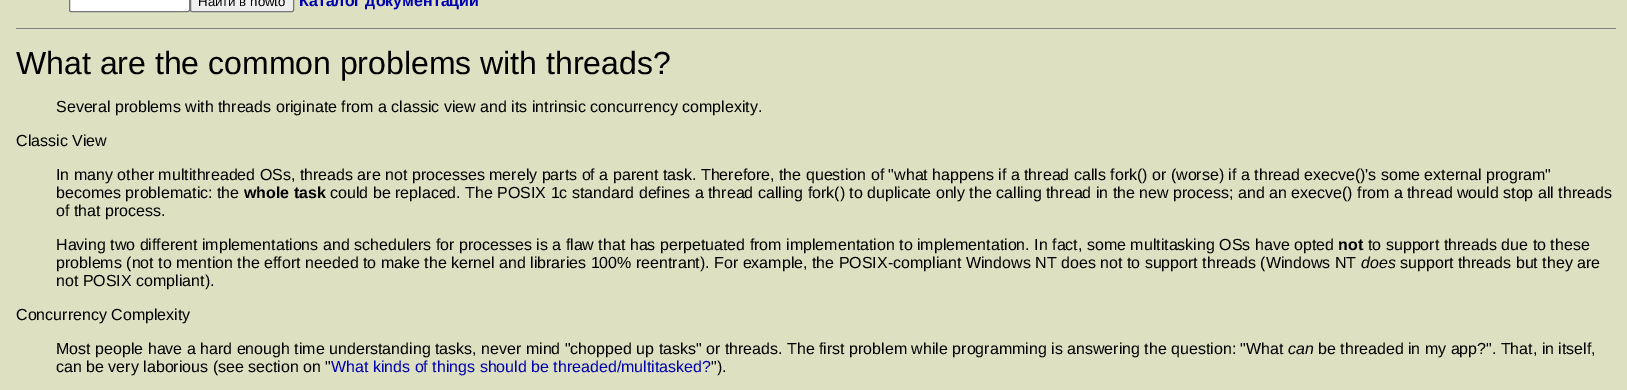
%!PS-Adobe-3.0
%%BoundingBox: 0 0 1627 390
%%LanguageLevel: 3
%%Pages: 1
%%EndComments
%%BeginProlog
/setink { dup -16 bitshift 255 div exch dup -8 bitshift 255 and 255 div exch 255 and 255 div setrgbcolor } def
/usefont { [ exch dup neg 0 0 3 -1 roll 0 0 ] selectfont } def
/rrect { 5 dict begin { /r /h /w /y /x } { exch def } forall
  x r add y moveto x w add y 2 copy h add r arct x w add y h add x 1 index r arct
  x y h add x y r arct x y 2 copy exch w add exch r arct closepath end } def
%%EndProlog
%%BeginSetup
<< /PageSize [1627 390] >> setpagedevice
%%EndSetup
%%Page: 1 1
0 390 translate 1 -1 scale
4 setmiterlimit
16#DDE1C2 setink
0 0 1627 390 rectfill
16#FFFFFF setink
69.5 -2.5 120 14 1.5 rrect gsave fill grestore
16#767676 setink
stroke
16#EFEFEF setink
190.5 -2.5 103 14 1.5 rrect gsave fill grestore
16#767676 setink
stroke
/LiberationSans-Regular 13.25 usefont
16#000000 setink
198 6 moveto (Найти в howto) show
/LiberationSans-Bold 16 usefont
16#0000AD setink
299 6 moveto (Каталог документации) show
16#808080 setink
16 28 1600 1 rectfill
/LiberationSans-Regular 32 usefont
16#000000 setink
16 74 moveto (What are the common problems with threads?) show
/LiberationSans-Regular 16 usefont
[
    [(Several problems with threads originate from a classic view and its intrinsic concurrency complexity.) 56 112]
    [(Classic View) 16 146]
    [(In many other multithreaded OSs, threads are not processes merely parts of a parent task. Therefore, the question of "what happens if a thread calls fork\(\) or \(worse\) if a thread execve\(\)'s some external program") 56 180]
    [(becomes problematic: the) 56 198]
] { aload pop moveto show } forall
/LiberationSans-Bold 16 usefont
244 198 moveto (whole task) show
/LiberationSans-Regular 16 usefont
[
    [(could be replaced. The POSIX 1c standard defines a thread calling fork\(\) to duplicate only the calling thread in the new process; and an execve\(\) from a thread would stop all threads) 330 198]
    [(of that process.) 56 216]
    [(Having two different implementations and schedulers for processes is a flaw that has perpetuated from implementation to implementation. In fact, some multitasking OSs have opted) 56 250]
] { aload pop moveto show } forall
/LiberationSans-Bold 16 usefont
1338 250 moveto (not) show
/LiberationSans-Regular 16 usefont
1368 250 moveto (to support threads due to these) show
56 268 moveto (problems \(not to mention the effort needed to make the kernel and libraries 100% reentrant\). For example, the POSIX-compliant Windows NT does not to support threads \(Windows NT) show
/LiberationSans-Italic 16 usefont
1361 268 moveto (does) show
/LiberationSans-Regular 16 usefont
[
    [(support threads but they are) 1400 268]
    [(not POSIX compliant\).) 56 286]
    [(Concurrency Complexity) 16 320]
    [(Most people have a hard enough time understanding tasks, never mind "chopped up tasks" or threads. The first problem while programming is answering the question: "What) 56 354]
] { aload pop moveto show } forall
/LiberationSans-Italic 16 usefont
1288 354 moveto (can) show
/LiberationSans-Regular 16 usefont
1318 354 moveto (be threaded in my app?". That, in itself,) show
56 372 moveto (can be very laborious \(see section on ") show
16#0000AD setink
331 372 moveto (What kinds of things should be threaded/multitasked?) show
16#000000 setink
711 372 moveto ("\).) show
showpage
%%EOF
